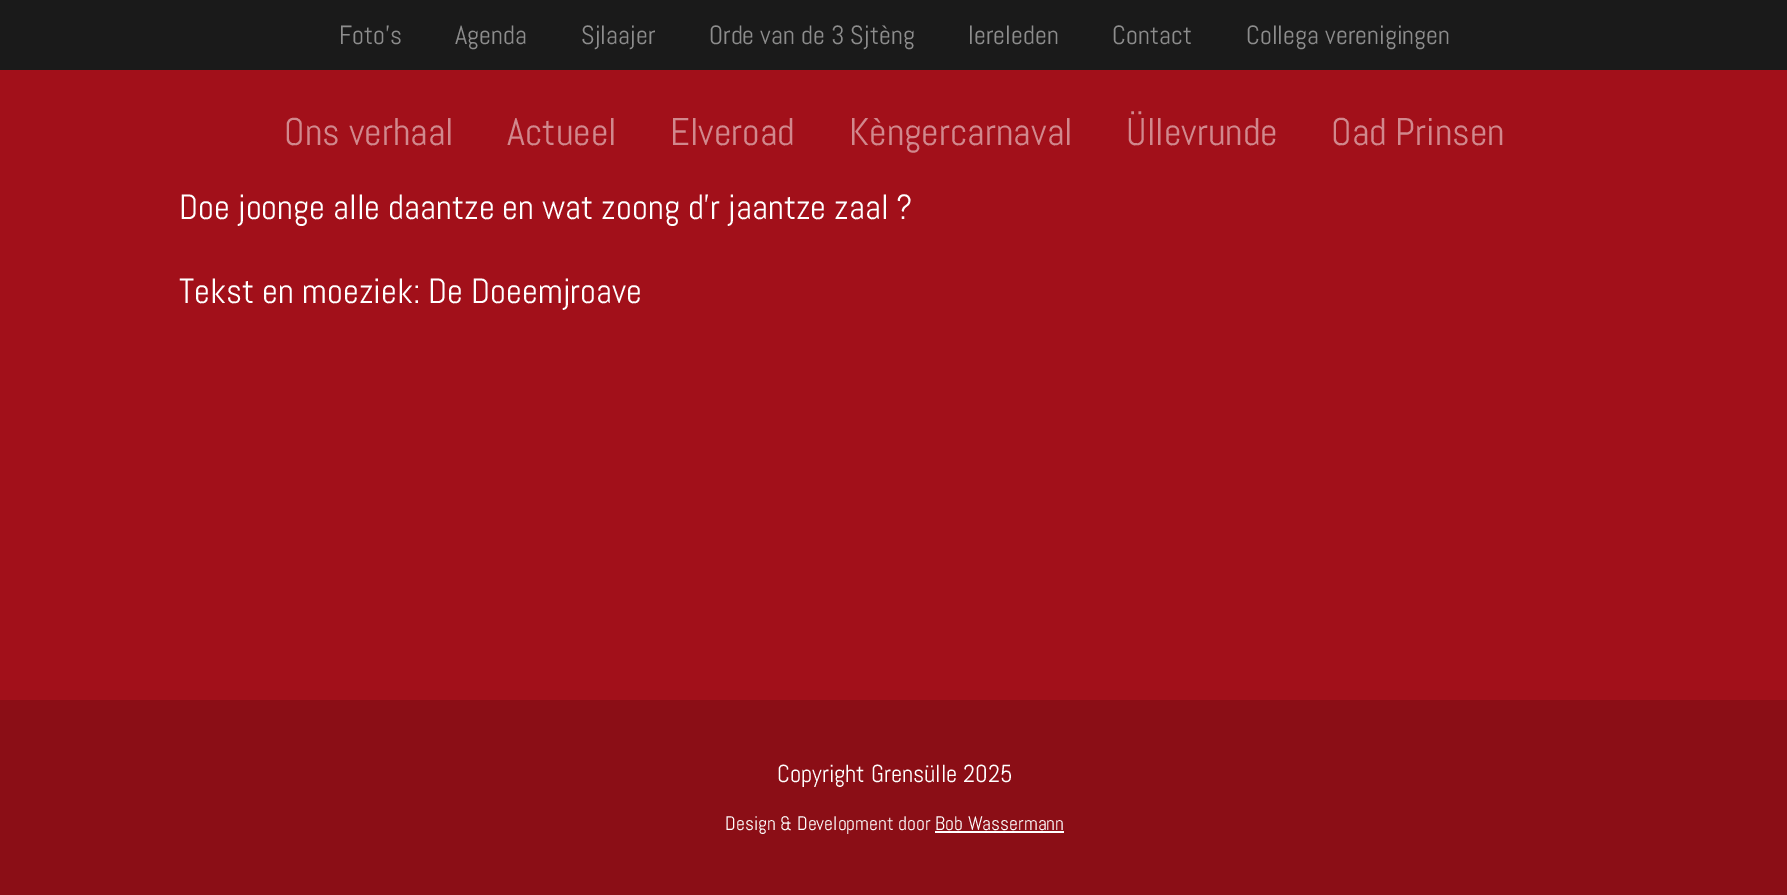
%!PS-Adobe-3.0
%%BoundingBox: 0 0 1787 895
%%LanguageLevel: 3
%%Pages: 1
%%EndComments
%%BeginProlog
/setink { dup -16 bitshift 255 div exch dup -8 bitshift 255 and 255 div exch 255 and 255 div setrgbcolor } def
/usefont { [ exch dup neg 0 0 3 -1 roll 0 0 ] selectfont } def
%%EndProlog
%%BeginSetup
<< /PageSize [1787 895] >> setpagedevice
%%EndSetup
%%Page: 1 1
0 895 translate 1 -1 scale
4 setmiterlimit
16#A2101A setink
0 0 1787 895 rectfill
16#1A1A1A setink
0 0 1787 70 rectfill
/Abel-Regular 26.25 usefont
16#8D8D8D setink
[
    [(Foto’s) 339 44]
    [(Agenda) 455 44]
    [(Sjlaajer) 581 44]
    [(Orde van de 3 Sjtèng) 709 44]
    [(Iereleden) 968 44]
    [(Contact) 1112 44]
    [(Collega verenigingen) 1246 44]
] { aload pop moveto show } forall
/Abel-Regular 38.5 usefont
16#D1888D setink
[
    [(Ons verhaal) 284 145]
    [(Actueel) 507 145]
    [(Elveroad) 670 145]
    [(Kèngercarnaval) 849 145]
    [(Üllevrunde) 1126 145]
    [(Oad Prinsen) 1331 145]
] { aload pop moveto show } forall
/Abel-Regular 35 usefont
16#FFFFFF setink
179 219 moveto (Doe joonge alle daantze en wat zoong d’r jaantze zaal ?) show
179 303 moveto (Tekst en moeziek: De Doeemjroave) show
16#8B0E16 setink
0 700 1787 195 rectfill
/Abel-Regular 24.5 usefont
16#FFFFFF setink
777 782 moveto (Copyright Grensülle 2025) show
/Abel-Regular 19.6 usefont
725 830 moveto (Design & Development door Bob Wassermann) show
935 831 129 2 rectfill
showpage
%%EOF
